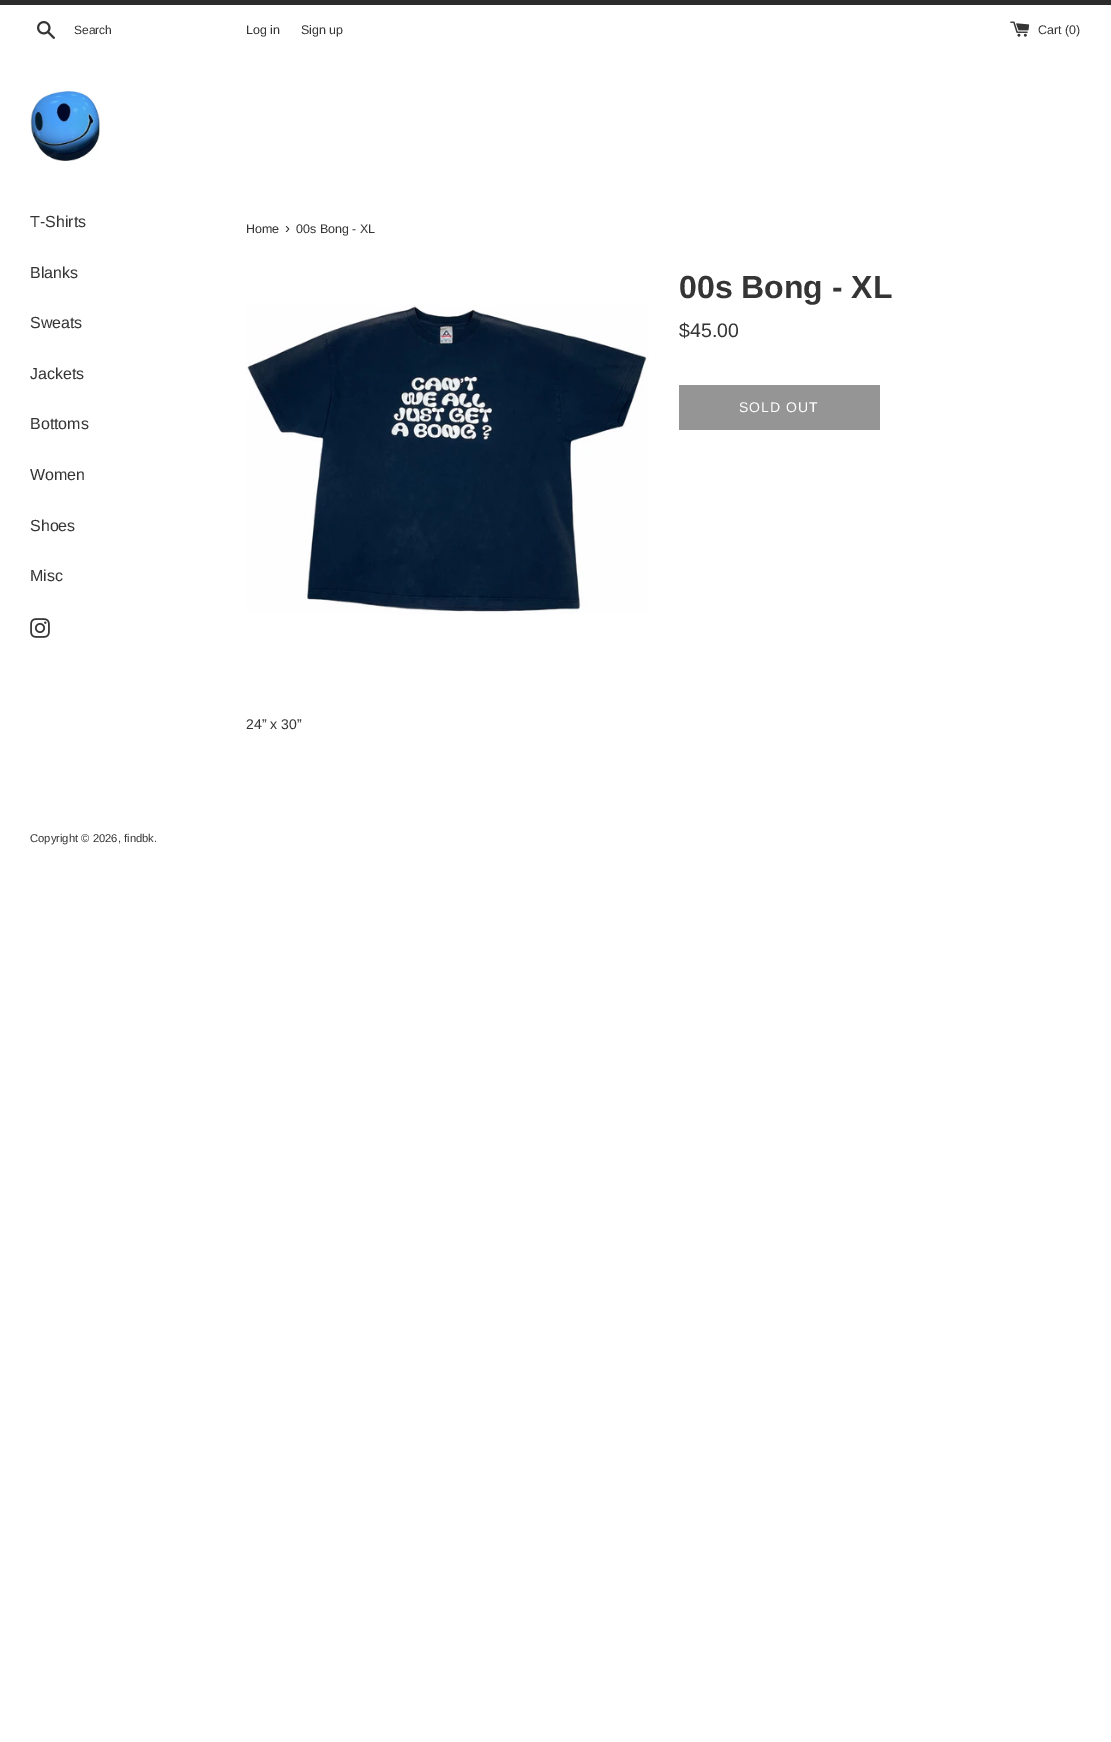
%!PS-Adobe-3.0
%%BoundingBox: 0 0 1111 1742
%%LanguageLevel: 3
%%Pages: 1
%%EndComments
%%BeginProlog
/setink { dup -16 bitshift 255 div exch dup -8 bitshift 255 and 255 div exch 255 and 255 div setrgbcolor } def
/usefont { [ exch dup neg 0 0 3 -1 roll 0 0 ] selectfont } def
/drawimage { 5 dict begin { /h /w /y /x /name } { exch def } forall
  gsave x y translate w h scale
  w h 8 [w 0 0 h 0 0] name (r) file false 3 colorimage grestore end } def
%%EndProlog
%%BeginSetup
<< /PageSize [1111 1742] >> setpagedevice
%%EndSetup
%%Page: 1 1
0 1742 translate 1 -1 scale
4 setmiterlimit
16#FFFFFF setink
0 0 1111 1742 rectfill
16#2B2B2B setink
0 0 1111 5 rectfill
(img1.raw) 37 21 18 18 drawimage
/LiberationSans-Regular 12 usefont
16#353535 setink
74 34 moveto (Search) show
/LiberationSans-Regular 12.5 usefont
246 34 moveto (Log in) show
301 34 moveto (Sign up) show
(img2.raw) 1010 21 20 16 drawimage
1038 34 moveto (Cart \(0\)) show
(img3.raw) 30 91 70 70 drawimage
/LiberationSans-Regular 16 usefont
[
    [(T-Shirts) 30 227]
    [(Blanks) 30 278]
    [(Sweats) 30 328]
    [(Jackets) 30 379]
    [(Bottoms) 30 429]
    [(Women) 30 480]
    [(Shoes) 30 531]
    [(Misc) 30 581]
] { aload pop moveto show } forall
(img4.raw) 30 618 20 20 drawimage
/LiberationSans-Regular 12.5 usefont
246 233 moveto (Home) show
/LiberationSans-Regular 15 usefont
285 233 moveto (›) show
/LiberationSans-Regular 12.5 usefont
296 233 moveto (00s Bong - XL) show
(img5.raw) 246 305 403 309 drawimage
/LiberationSans-Bold 32 usefont
679 298 moveto (00s Bong - XL) show
/LiberationSans-Regular 19.5 usefont
679 337 moveto ($45.00) show
16#959595 setink
679 385 201 45 rectfill
/LiberationSans-Regular 14 usefont
16#FFFFFF setink
739 412 moveto 1 0 (SOLD OUT) ashow
16#353535 setink
246 729 moveto (24” x 30”) show
/LiberationSans-Regular 11.25 usefont
30 842 moveto (Copyright © 2026, findbk.) show
showpage
%%EOF
